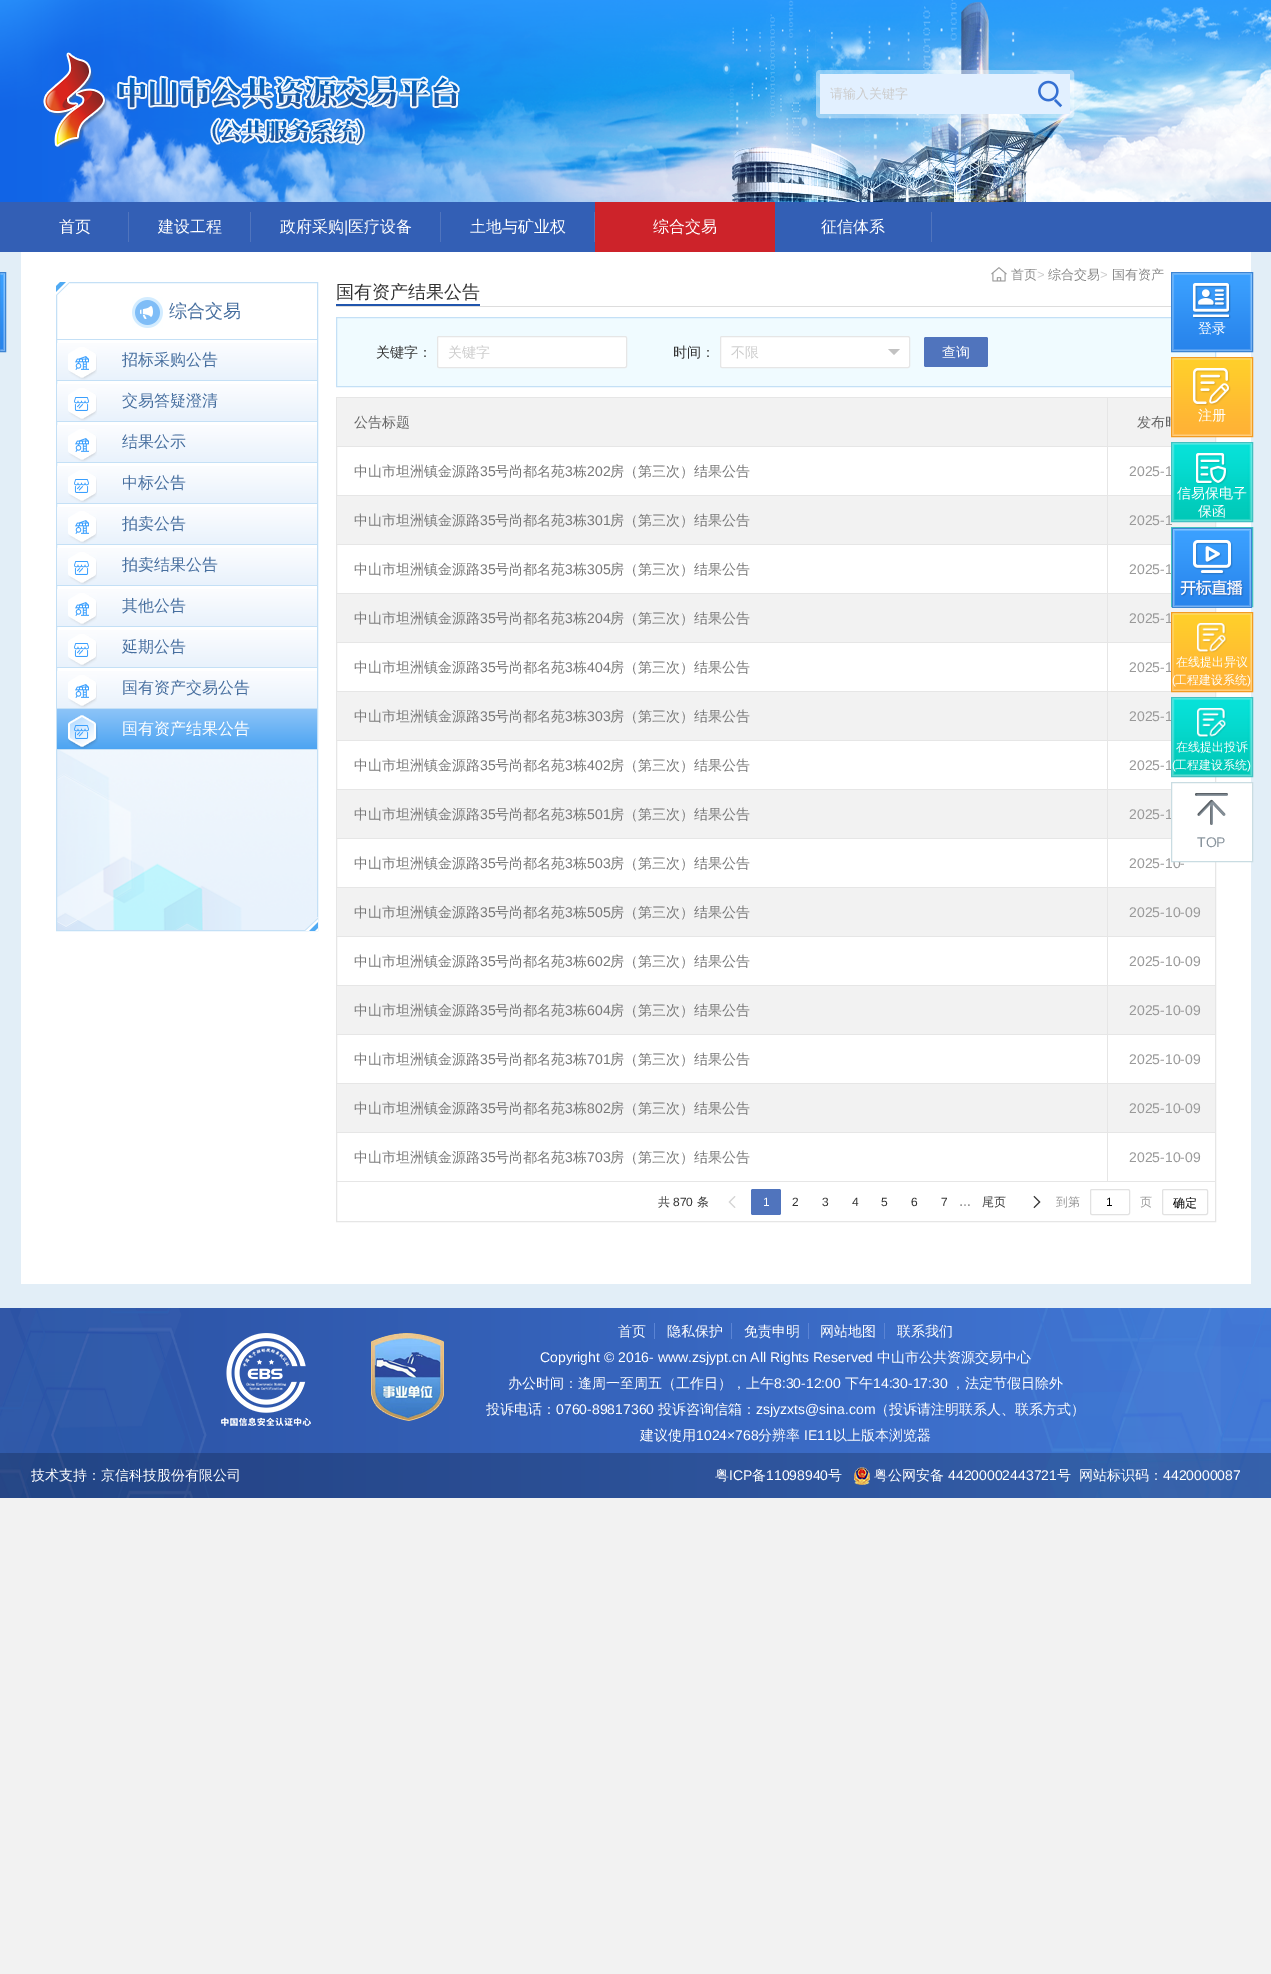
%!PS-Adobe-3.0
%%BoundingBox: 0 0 1271 1974
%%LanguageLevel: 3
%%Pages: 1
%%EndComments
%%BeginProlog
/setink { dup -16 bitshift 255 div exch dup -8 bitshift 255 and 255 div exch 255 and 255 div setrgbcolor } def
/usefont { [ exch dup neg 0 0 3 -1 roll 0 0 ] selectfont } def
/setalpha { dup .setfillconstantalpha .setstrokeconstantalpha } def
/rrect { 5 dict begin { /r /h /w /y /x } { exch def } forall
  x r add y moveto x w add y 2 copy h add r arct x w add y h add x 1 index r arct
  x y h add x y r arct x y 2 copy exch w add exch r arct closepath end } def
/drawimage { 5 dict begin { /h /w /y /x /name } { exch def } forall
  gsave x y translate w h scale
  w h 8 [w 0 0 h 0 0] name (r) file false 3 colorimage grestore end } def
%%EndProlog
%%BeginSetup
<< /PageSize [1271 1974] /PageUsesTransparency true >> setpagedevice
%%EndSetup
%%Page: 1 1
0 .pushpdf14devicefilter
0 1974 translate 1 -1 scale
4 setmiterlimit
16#F2F2F2 setink
0 0 1271 1974 rectfill
16#E2EEF7 setink
0 252 1271 1056 rectfill
(img1.raw) 0 0 1271 202 drawimage
(img2.raw) 43 52 418 98 drawimage
0.4 setalpha
16#FFFFFF setink
4 setlinewidth
818 72 254 44 2 rrect stroke
1 setalpha
16#E2F0FF setink
820 74 250 40 rectfill
/WenQuanYiZenHei-Medium 13 usefont
16#CCCCCC setink
830 98 moveto (请输入关键字) show
(img3.raw) 1038 80 25 28 drawimage
16#335FB5 setink
0 202 1271 50 rectfill
/WenQuanYiZenHei-Medium 16 usefont
16#FFFFFF setink
59 232 moveto (首页) show
16#5074BD setink
128 212 1 30 rectfill
16#FFFFFF setink
158 232 moveto (建设工程) show
16#5074BD setink
250 212 1 30 rectfill
16#FFFFFF setink
280 232 moveto (政府采购) show
/LiberationSans-Regular 16 usefont
344 232 moveto (|) show
/WenQuanYiZenHei-Medium 16 usefont
348 232 moveto (医疗设备) show
16#5074BD setink
440 212 1 30 rectfill
16#FFFFFF setink
470 232 moveto (土地与矿业权) show
16#5074BD setink
594 212 1 30 rectfill
16#CD232A setink
595 202 180 50 rectfill
16#FFFFFF setink
653 232 moveto (综合交易) show
821 232 moveto (征信体系) show
16#5074BD setink
931 212 1 30 rectfill
(img4.raw) 0 273 5 78 drawimage
16#3C84D3 setink
1 setlinewidth
-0.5 272.5 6 79 rectstroke
16#FFFFFF setink
21 252 1230 1032 rectfill
(img5.raw) 991 267 16 15 drawimage
/WenQuanYiZenHei-Medium 13 usefont
16#888888 setink
1011 279 moveto (首页) show
/LiberationSans-Regular 13 usefont
16#CCCCCC setink
1037 279 moveto (>) show
/WenQuanYiZenHei-Medium 13 usefont
16#888888 setink
1048 279 moveto (综合交易) show
/LiberationSans-Regular 13 usefont
16#CCCCCC setink
1100 279 moveto (>) show
/WenQuanYiZenHei-Medium 13 usefont
16#888888 setink
1112 279 moveto (国有资产) show
(img6.raw) 57 750 260 180 drawimage
16#C4E0F6 setink
56.5 282.5 261 648 rectstroke
(img7.raw) 56 282 14 13 drawimage
(img8.raw) 132 297 31 31 drawimage
/WenQuanYiZenHei-Medium 18 usefont
16#476F9F setink
169 317 moveto (综合交易) show
16#C4E0F6 setink
57 339 260 1 rectfill
57 380 260 1 rectfill
gsave 57 343 moveto 317 343 lineto 317 380 lineto 57 380 lineto closepath clip newpath
<< /ShadingType 2 /ColorSpace /DeviceRGB /Coords [187 340 187 380] /Extend [true true] /Function << /FunctionType 2 /Domain [0 1] /C0 [0.996 0.996 1] /C1 [0.914 0.949 0.988] /N 1 >> >> shfill grestore
(img9.raw) 68 347 29 33 drawimage
(img10.raw) 75 356 14 14 drawimage
/WenQuanYiZenHei-Medium 16 usefont
16#476F9F setink
122 365 moveto (招标采购公告) show
16#C4E0F6 setink
57 421 260 1 rectfill
gsave 57 384 moveto 317 384 lineto 317 421 lineto 57 421 lineto closepath clip newpath
<< /ShadingType 2 /ColorSpace /DeviceRGB /Coords [187 381 187 421] /Extend [true true] /Function << /FunctionType 2 /Domain [0 1] /C0 [0.996 0.996 1] /C1 [0.914 0.949 0.988] /N 1 >> >> shfill grestore
(img9.raw) 68 388 29 33 drawimage
(img11.raw) 74 397 15 14 drawimage
16#476F9F setink
122 406 moveto (交易答疑澄清) show
16#C4E0F6 setink
57 462 260 1 rectfill
gsave 57 425 moveto 317 425 lineto 317 462 lineto 57 462 lineto closepath clip newpath
<< /ShadingType 2 /ColorSpace /DeviceRGB /Coords [187 422 187 462] /Extend [true true] /Function << /FunctionType 2 /Domain [0 1] /C0 [0.996 0.996 1] /C1 [0.914 0.949 0.988] /N 1 >> >> shfill grestore
(img9.raw) 68 429 29 33 drawimage
(img10.raw) 75 438 14 14 drawimage
16#476F9F setink
122 447 moveto (结果公示) show
16#C4E0F6 setink
57 503 260 1 rectfill
gsave 57 466 moveto 317 466 lineto 317 503 lineto 57 503 lineto closepath clip newpath
<< /ShadingType 2 /ColorSpace /DeviceRGB /Coords [187 463 187 503] /Extend [true true] /Function << /FunctionType 2 /Domain [0 1] /C0 [0.996 0.996 1] /C1 [0.914 0.949 0.988] /N 1 >> >> shfill grestore
(img9.raw) 68 470 29 33 drawimage
(img11.raw) 74 479 15 14 drawimage
16#476F9F setink
122 488 moveto (中标公告) show
16#C4E0F6 setink
57 544 260 1 rectfill
gsave 57 507 moveto 317 507 lineto 317 544 lineto 57 544 lineto closepath clip newpath
<< /ShadingType 2 /ColorSpace /DeviceRGB /Coords [187 504 187 544] /Extend [true true] /Function << /FunctionType 2 /Domain [0 1] /C0 [0.996 0.996 1] /C1 [0.914 0.949 0.988] /N 1 >> >> shfill grestore
(img9.raw) 68 511 29 33 drawimage
(img10.raw) 75 520 14 14 drawimage
16#476F9F setink
122 529 moveto (拍卖公告) show
16#C4E0F6 setink
57 585 260 1 rectfill
gsave 57 548 moveto 317 548 lineto 317 585 lineto 57 585 lineto closepath clip newpath
<< /ShadingType 2 /ColorSpace /DeviceRGB /Coords [187 545 187 585] /Extend [true true] /Function << /FunctionType 2 /Domain [0 1] /C0 [0.996 0.996 1] /C1 [0.914 0.949 0.988] /N 1 >> >> shfill grestore
(img9.raw) 68 552 29 33 drawimage
(img11.raw) 74 561 15 14 drawimage
16#476F9F setink
122 570 moveto (拍卖结果公告) show
16#C4E0F6 setink
57 626 260 1 rectfill
gsave 57 589 moveto 317 589 lineto 317 626 lineto 57 626 lineto closepath clip newpath
<< /ShadingType 2 /ColorSpace /DeviceRGB /Coords [187 586 187 626] /Extend [true true] /Function << /FunctionType 2 /Domain [0 1] /C0 [0.996 0.996 1] /C1 [0.914 0.949 0.988] /N 1 >> >> shfill grestore
(img9.raw) 68 593 29 33 drawimage
(img10.raw) 75 602 14 14 drawimage
16#476F9F setink
122 611 moveto (其他公告) show
16#C4E0F6 setink
57 667 260 1 rectfill
gsave 57 630 moveto 317 630 lineto 317 667 lineto 57 667 lineto closepath clip newpath
<< /ShadingType 2 /ColorSpace /DeviceRGB /Coords [187 627 187 667] /Extend [true true] /Function << /FunctionType 2 /Domain [0 1] /C0 [0.996 0.996 1] /C1 [0.914 0.949 0.988] /N 1 >> >> shfill grestore
(img9.raw) 68 634 29 33 drawimage
(img11.raw) 74 643 15 14 drawimage
16#476F9F setink
122 652 moveto (延期公告) show
16#C4E0F6 setink
57 708 260 1 rectfill
gsave 57 671 moveto 317 671 lineto 317 708 lineto 57 708 lineto closepath clip newpath
<< /ShadingType 2 /ColorSpace /DeviceRGB /Coords [187 668 187 708] /Extend [true true] /Function << /FunctionType 2 /Domain [0 1] /C0 [0.996 0.996 1] /C1 [0.914 0.949 0.988] /N 1 >> >> shfill grestore
(img9.raw) 68 675 29 33 drawimage
(img10.raw) 75 684 14 14 drawimage
16#476F9F setink
122 693 moveto (国有资产交易公告) show
16#C4E0F6 setink
57 749 260 1 rectfill
gsave 57 709 moveto 317 709 lineto 317 749 lineto 57 749 lineto closepath clip newpath
<< /ShadingType 2 /ColorSpace /DeviceRGB /Coords [187 709 187 749] /Extend [true true] /Function << /FunctionType 2 /Domain [0 1] /C0 [0.553 0.769 0.973] /C1 [0.298 0.643 0.949] /N 1 >> >> shfill grestore
(img12.raw) 68 715 30 34 drawimage
(img13.raw) 74 725 15 14 drawimage
16#FFFFFF setink
122 734 moveto (国有资产结果公告) show
(img14.raw) 305 917 13 14 drawimage
16#DDDDDD setink
336 306 835 1 rectfill
16#2055AD setink
336 304 144 2 rectfill
/WenQuanYiZenHei-Medium 18 usefont
16#333333 setink
336 298 moveto (国有资产结果公告) show
16#F0FBFF setink
336.5 317.5 moveto 1215.5 317.5 lineto 1215.5 386.5 lineto 336.5 386.5 lineto closepath gsave fill grestore
16#C4E0F6 setink
stroke
/WenQuanYiZenHei-Medium 14 usefont
16#333333 setink
376 357 moveto (关键字：) show
16#FFFFFF setink
437.5 336.5 189 31 1.5 rrect gsave fill grestore
16#E6E6E6 setink
stroke
16#CCCCCC setink
448 357 moveto (关键字) show
16#333333 setink
673 357 moveto (时间：) show
16#FFFFFF setink
720.5 336.5 189 31 1.5 rrect gsave fill grestore
16#E6E6E6 setink
stroke
16#CCCCCC setink
731 357 moveto (不限) show
16#C2C2C2 setink
888 349 moveto 900 349 lineto 894 355 lineto closepath fill
16#5074BD setink
924 337 64 30 2 rrect fill
16#FFFFFF setink
942 357 moveto (查询) show
16#E6E6E6 setink
336.5 397.5 879 824 rectstroke
[
    [337 446 834 1 16#E6E6E6]
    [337 398 878 48 16#F2F2F2]
    [1107 398 1 48 16#E6E6E6]
] { aload pop setink rectfill } forall
16#666666 setink
354 427 moveto (公告标题) show
1137 427 moveto (发布时) show
[
    [337 496 878 48 16#F2F2F2]
    [337 594 878 48 16#F2F2F2]
    [337 692 878 48 16#F2F2F2]
    [337 790 834 48 16#F2F2F2]
    [337 888 878 48 16#F2F2F2]
    [337 986 878 48 16#F2F2F2]
    [337 1084 878 48 16#F2F2F2]
    [1107 1132 1 49 16#E6E6E6]
    [1107 1132 108 1 16#E6E6E6]
    [1107 1083 1 50 16#E6E6E6]
    [1107 1083 108 1 16#E6E6E6]
    [1107 1034 1 50 16#E6E6E6]
    [1107 1034 108 1 16#E6E6E6]
    [1107 985 1 50 16#E6E6E6]
    [1107 985 108 1 16#E6E6E6]
    [1107 936 1 50 16#E6E6E6]
    [1107 936 108 1 16#E6E6E6]
    [1107 887 1 50 16#E6E6E6]
    [1107 887 108 1 16#E6E6E6]
    [1107 838 1 50 16#E6E6E6]
    [1107 838 64 1 16#E6E6E6]
    [1107 789 1 50 16#E6E6E6]
    [1107 789 64 1 16#E6E6E6]
    [1107 740 1 50 16#E6E6E6]
    [1107 740 64 1 16#E6E6E6]
    [1107 691 1 50 16#E6E6E6]
    [1107 691 64 1 16#E6E6E6]
    [1107 642 1 50 16#E6E6E6]
    [1107 642 64 1 16#E6E6E6]
    [1107 593 1 50 16#E6E6E6]
    [1107 593 64 1 16#E6E6E6]
    [1107 544 1 50 16#E6E6E6]
    [1107 544 64 1 16#E6E6E6]
    [1107 495 1 50 16#E6E6E6]
    [1107 495 64 1 16#E6E6E6]
    [1107 447 1 49 16#E6E6E6]
    [337 495 771 1 16#E6E6E6]
] { aload pop setink rectfill } forall
16#777777 setink
354 476 moveto (中山市坦洲镇金源路) show
/LiberationSans-Regular 14 usefont
480 476 moveto (35) show
/WenQuanYiZenHei-Medium 14 usefont
495 476 moveto (号尚都名苑) show
/LiberationSans-Regular 14 usefont
565 476 moveto (3) show
/WenQuanYiZenHei-Medium 14 usefont
573 476 moveto (栋) show
/LiberationSans-Regular 14 usefont
587 476 moveto (202) show
/WenQuanYiZenHei-Medium 14 usefont
610 476 moveto (房（第三次）结果公告) show
/LiberationSans-Regular 14 usefont
16#999999 setink
1129 476 moveto (2025-1) show
16#E6E6E6 setink
337 544 771 1 rectfill
/WenQuanYiZenHei-Medium 14 usefont
16#777777 setink
354 525 moveto (中山市坦洲镇金源路) show
/LiberationSans-Regular 14 usefont
480 525 moveto (35) show
/WenQuanYiZenHei-Medium 14 usefont
495 525 moveto (号尚都名苑) show
/LiberationSans-Regular 14 usefont
565 525 moveto (3) show
/WenQuanYiZenHei-Medium 14 usefont
573 525 moveto (栋) show
/LiberationSans-Regular 14 usefont
587 525 moveto (301) show
/WenQuanYiZenHei-Medium 14 usefont
610 525 moveto (房（第三次）结果公告) show
/LiberationSans-Regular 14 usefont
16#999999 setink
1129 525 moveto (2025-1) show
16#E6E6E6 setink
337 593 771 1 rectfill
/WenQuanYiZenHei-Medium 14 usefont
16#777777 setink
354 574 moveto (中山市坦洲镇金源路) show
/LiberationSans-Regular 14 usefont
480 574 moveto (35) show
/WenQuanYiZenHei-Medium 14 usefont
495 574 moveto (号尚都名苑) show
/LiberationSans-Regular 14 usefont
565 574 moveto (3) show
/WenQuanYiZenHei-Medium 14 usefont
573 574 moveto (栋) show
/LiberationSans-Regular 14 usefont
587 574 moveto (305) show
/WenQuanYiZenHei-Medium 14 usefont
610 574 moveto (房（第三次）结果公告) show
/LiberationSans-Regular 14 usefont
16#999999 setink
1129 574 moveto (2025-1) show
16#E6E6E6 setink
337 642 771 1 rectfill
/WenQuanYiZenHei-Medium 14 usefont
16#777777 setink
354 623 moveto (中山市坦洲镇金源路) show
/LiberationSans-Regular 14 usefont
480 623 moveto (35) show
/WenQuanYiZenHei-Medium 14 usefont
495 623 moveto (号尚都名苑) show
/LiberationSans-Regular 14 usefont
565 623 moveto (3) show
/WenQuanYiZenHei-Medium 14 usefont
573 623 moveto (栋) show
/LiberationSans-Regular 14 usefont
587 623 moveto (204) show
/WenQuanYiZenHei-Medium 14 usefont
610 623 moveto (房（第三次）结果公告) show
/LiberationSans-Regular 14 usefont
16#999999 setink
1129 623 moveto (2025-1) show
16#E6E6E6 setink
337 691 771 1 rectfill
/WenQuanYiZenHei-Medium 14 usefont
16#777777 setink
354 672 moveto (中山市坦洲镇金源路) show
/LiberationSans-Regular 14 usefont
480 672 moveto (35) show
/WenQuanYiZenHei-Medium 14 usefont
495 672 moveto (号尚都名苑) show
/LiberationSans-Regular 14 usefont
565 672 moveto (3) show
/WenQuanYiZenHei-Medium 14 usefont
573 672 moveto (栋) show
/LiberationSans-Regular 14 usefont
587 672 moveto (404) show
/WenQuanYiZenHei-Medium 14 usefont
610 672 moveto (房（第三次）结果公告) show
/LiberationSans-Regular 14 usefont
16#999999 setink
1129 672 moveto (2025-1) show
16#E6E6E6 setink
337 740 771 1 rectfill
/WenQuanYiZenHei-Medium 14 usefont
16#777777 setink
354 721 moveto (中山市坦洲镇金源路) show
/LiberationSans-Regular 14 usefont
480 721 moveto (35) show
/WenQuanYiZenHei-Medium 14 usefont
495 721 moveto (号尚都名苑) show
/LiberationSans-Regular 14 usefont
565 721 moveto (3) show
/WenQuanYiZenHei-Medium 14 usefont
573 721 moveto (栋) show
/LiberationSans-Regular 14 usefont
587 721 moveto (303) show
/WenQuanYiZenHei-Medium 14 usefont
610 721 moveto (房（第三次）结果公告) show
/LiberationSans-Regular 14 usefont
16#999999 setink
1129 721 moveto (2025-1) show
16#E6E6E6 setink
337 789 771 1 rectfill
/WenQuanYiZenHei-Medium 14 usefont
16#777777 setink
354 770 moveto (中山市坦洲镇金源路) show
/LiberationSans-Regular 14 usefont
480 770 moveto (35) show
/WenQuanYiZenHei-Medium 14 usefont
495 770 moveto (号尚都名苑) show
/LiberationSans-Regular 14 usefont
565 770 moveto (3) show
/WenQuanYiZenHei-Medium 14 usefont
573 770 moveto (栋) show
/LiberationSans-Regular 14 usefont
587 770 moveto (402) show
/WenQuanYiZenHei-Medium 14 usefont
610 770 moveto (房（第三次）结果公告) show
/LiberationSans-Regular 14 usefont
16#999999 setink
1129 770 moveto (2025-1) show
16#E6E6E6 setink
337 838 771 1 rectfill
/WenQuanYiZenHei-Medium 14 usefont
16#777777 setink
354 819 moveto (中山市坦洲镇金源路) show
/LiberationSans-Regular 14 usefont
480 819 moveto (35) show
/WenQuanYiZenHei-Medium 14 usefont
495 819 moveto (号尚都名苑) show
/LiberationSans-Regular 14 usefont
565 819 moveto (3) show
/WenQuanYiZenHei-Medium 14 usefont
573 819 moveto (栋) show
/LiberationSans-Regular 14 usefont
587 819 moveto (501) show
/WenQuanYiZenHei-Medium 14 usefont
610 819 moveto (房（第三次）结果公告) show
/LiberationSans-Regular 14 usefont
16#999999 setink
1129 819 moveto (2025-1) show
16#E6E6E6 setink
337 887 771 1 rectfill
/WenQuanYiZenHei-Medium 14 usefont
16#777777 setink
354 868 moveto (中山市坦洲镇金源路) show
/LiberationSans-Regular 14 usefont
480 868 moveto (35) show
/WenQuanYiZenHei-Medium 14 usefont
495 868 moveto (号尚都名苑) show
/LiberationSans-Regular 14 usefont
565 868 moveto (3) show
/WenQuanYiZenHei-Medium 14 usefont
573 868 moveto (栋) show
/LiberationSans-Regular 14 usefont
587 868 moveto (503) show
/WenQuanYiZenHei-Medium 14 usefont
610 868 moveto (房（第三次）结果公告) show
/LiberationSans-Regular 14 usefont
16#999999 setink
1129 868 moveto (2025-10-) show
16#E6E6E6 setink
337 936 771 1 rectfill
/WenQuanYiZenHei-Medium 14 usefont
16#777777 setink
354 917 moveto (中山市坦洲镇金源路) show
/LiberationSans-Regular 14 usefont
480 917 moveto (35) show
/WenQuanYiZenHei-Medium 14 usefont
495 917 moveto (号尚都名苑) show
/LiberationSans-Regular 14 usefont
565 917 moveto (3) show
/WenQuanYiZenHei-Medium 14 usefont
573 917 moveto (栋) show
/LiberationSans-Regular 14 usefont
587 917 moveto (505) show
/WenQuanYiZenHei-Medium 14 usefont
610 917 moveto (房（第三次）结果公告) show
/LiberationSans-Regular 14 usefont
16#999999 setink
1129 917 moveto (2025-10-09) show
16#E6E6E6 setink
337 985 771 1 rectfill
/WenQuanYiZenHei-Medium 14 usefont
16#777777 setink
354 966 moveto (中山市坦洲镇金源路) show
/LiberationSans-Regular 14 usefont
480 966 moveto (35) show
/WenQuanYiZenHei-Medium 14 usefont
495 966 moveto (号尚都名苑) show
/LiberationSans-Regular 14 usefont
565 966 moveto (3) show
/WenQuanYiZenHei-Medium 14 usefont
573 966 moveto (栋) show
/LiberationSans-Regular 14 usefont
587 966 moveto (602) show
/WenQuanYiZenHei-Medium 14 usefont
610 966 moveto (房（第三次）结果公告) show
/LiberationSans-Regular 14 usefont
16#999999 setink
1129 966 moveto (2025-10-09) show
16#E6E6E6 setink
337 1034 771 1 rectfill
/WenQuanYiZenHei-Medium 14 usefont
16#777777 setink
354 1015 moveto (中山市坦洲镇金源路) show
/LiberationSans-Regular 14 usefont
480 1015 moveto (35) show
/WenQuanYiZenHei-Medium 14 usefont
495 1015 moveto (号尚都名苑) show
/LiberationSans-Regular 14 usefont
565 1015 moveto (3) show
/WenQuanYiZenHei-Medium 14 usefont
573 1015 moveto (栋) show
/LiberationSans-Regular 14 usefont
587 1015 moveto (604) show
/WenQuanYiZenHei-Medium 14 usefont
610 1015 moveto (房（第三次）结果公告) show
/LiberationSans-Regular 14 usefont
16#999999 setink
1129 1015 moveto (2025-10-09) show
16#E6E6E6 setink
337 1083 771 1 rectfill
/WenQuanYiZenHei-Medium 14 usefont
16#777777 setink
354 1064 moveto (中山市坦洲镇金源路) show
/LiberationSans-Regular 14 usefont
480 1064 moveto (35) show
/WenQuanYiZenHei-Medium 14 usefont
495 1064 moveto (号尚都名苑) show
/LiberationSans-Regular 14 usefont
565 1064 moveto (3) show
/WenQuanYiZenHei-Medium 14 usefont
573 1064 moveto (栋) show
/LiberationSans-Regular 14 usefont
587 1064 moveto (701) show
/WenQuanYiZenHei-Medium 14 usefont
610 1064 moveto (房（第三次）结果公告) show
/LiberationSans-Regular 14 usefont
16#999999 setink
1129 1064 moveto (2025-10-09) show
16#E6E6E6 setink
337 1132 771 1 rectfill
/WenQuanYiZenHei-Medium 14 usefont
16#777777 setink
354 1113 moveto (中山市坦洲镇金源路) show
/LiberationSans-Regular 14 usefont
480 1113 moveto (35) show
/WenQuanYiZenHei-Medium 14 usefont
495 1113 moveto (号尚都名苑) show
/LiberationSans-Regular 14 usefont
565 1113 moveto (3) show
/WenQuanYiZenHei-Medium 14 usefont
573 1113 moveto (栋) show
/LiberationSans-Regular 14 usefont
587 1113 moveto (802) show
/WenQuanYiZenHei-Medium 14 usefont
610 1113 moveto (房（第三次）结果公告) show
/LiberationSans-Regular 14 usefont
16#999999 setink
1129 1113 moveto (2025-10-09) show
/WenQuanYiZenHei-Medium 14 usefont
16#777777 setink
354 1162 moveto (中山市坦洲镇金源路) show
/LiberationSans-Regular 14 usefont
480 1162 moveto (35) show
/WenQuanYiZenHei-Medium 14 usefont
495 1162 moveto (号尚都名苑) show
/LiberationSans-Regular 14 usefont
565 1162 moveto (3) show
/WenQuanYiZenHei-Medium 14 usefont
573 1162 moveto (栋) show
/LiberationSans-Regular 14 usefont
587 1162 moveto (703) show
/WenQuanYiZenHei-Medium 14 usefont
610 1162 moveto (房（第三次）结果公告) show
/LiberationSans-Regular 14 usefont
16#999999 setink
1129 1162 moveto (2025-10-09) show
16#E6E6E6 setink
337 1181 878 1 rectfill
/WenQuanYiZenHei-Medium 12 usefont
16#333333 setink
658 1206 moveto (共) show
/LiberationSans-Regular 12 usefont
673 1206 moveto (870) show
/WenQuanYiZenHei-Medium 12 usefont
697 1206 moveto (条) show
(img15.raw) 728 1196 8 12 drawimage
16#5074BD setink
751 1189 30 26 2 rrect fill
/LiberationSans-Regular 12 usefont
16#FFFFFF setink
763 1206 moveto (1) show
16#333333 setink
[
    [(2) 792 1206]
    [(3) 822 1206]
    [(4) 852 1206]
    [(5) 881 1206]
    [(6) 911 1206]
    [(7) 941 1206]
] { aload pop moveto show } forall
/LiberationSans-Bold 12 usefont
16#999999 setink
959 1206 moveto (…) show
/WenQuanYiZenHei-Medium 12 usefont
16#333333 setink
982 1206 moveto (尾页) show
(img16.raw) 1033 1195 8 14 drawimage
16#999999 setink
1056 1206 moveto (到第) show
16#E2E2E2 setink
1090.5 1189.5 39 25 1.5 rrect stroke
/LiberationSans-Regular 12 usefont
16#000000 setink
1106 1206 moveto (1) show
/WenQuanYiZenHei-Medium 12 usefont
16#999999 setink
1140 1206 moveto (页) show
16#E2E2E2 setink
1162.5 1189.5 45 25 1.5 rrect stroke
16#000000 setink
1173 1207 moveto (确定) show
(img17.raw) 1172 273 80 78 drawimage
16#3C84D3 setink
1171.5 272.5 81 79 rectstroke
(img18.raw) 1193 283 38 36 drawimage
/WenQuanYiZenHei-Medium 14 usefont
16#FFFFFF setink
1198 333 moveto (登录) show
(img19.raw) 1172 358 80 78 drawimage
16#F39B21 setink
1171.5 357.5 81 79 rectstroke
(img20.raw) 1193 368 38 38 drawimage
16#FFFFFF setink
1198 420 moveto (注册) show
(img21.raw) 1172 443 80 78 drawimage
16#41C0C1 setink
1171.5 442.5 81 79 rectstroke
(img22.raw) 1196 453 32 31 drawimage
16#FFFFFF setink
1177 498 moveto (信易保电子) show
1198 516 moveto (保函) show
16#41C0C1 setink
1171.5 527.5 81 79 rectstroke
(img23.raw) 1172 528 80 80 drawimage
(img19.raw) 1172 613 80 78 drawimage
16#F39B21 setink
1171.5 612.5 81 79 rectstroke
(img24.raw) 1197 623 30 30 drawimage
/WenQuanYiZenHei-Medium 12 usefont
16#FFFFFF setink
1176 666 moveto (在线提出异议) show
/LiberationSans-Regular 12 usefont
1172 684 moveto (\() show
/WenQuanYiZenHei-Medium 12 usefont
1175 684 moveto (工程建设系统) show
/LiberationSans-Regular 12 usefont
1247 684 moveto (\)) show
(img21.raw) 1172 698 80 78 drawimage
16#41C0C1 setink
1171.5 697.5 81 79 rectstroke
(img25.raw) 1197 708 30 30 drawimage
/WenQuanYiZenHei-Medium 12 usefont
16#FFFFFF setink
1176 751 moveto (在线提出投诉) show
/LiberationSans-Regular 12 usefont
1172 769 moveto (\() show
/WenQuanYiZenHei-Medium 12 usefont
1175 769 moveto (工程建设系统) show
/LiberationSans-Regular 12 usefont
1247 769 moveto (\)) show
1173 783 79 78 rectfill
16#C9DCE2 setink
1171.5 782.5 81 79 rectstroke
(img26.raw) 1195 793 33 32 drawimage
/LiberationSans-Regular 14 usefont
16#89949D setink
1197 847 moveto (TOP) show
(img27.raw) 0 1308 1271 190 drawimage
(img28.raw) 221 1333 90 93 drawimage
(img29.raw) 371 1333 73 88 drawimage
/WenQuanYiZenHei-Medium 14 usefont
16#FFFFFF setink
618 1336 moveto (首页) show
16#5B84D4 setink
654 1323 1 16 rectfill
16#FFFFFF setink
667 1336 moveto (隐私保护) show
16#5B84D4 setink
731 1323 1 16 rectfill
16#FFFFFF setink
744 1336 moveto (免责申明) show
16#5B84D4 setink
808 1323 1 16 rectfill
16#FFFFFF setink
820 1336 moveto (网站地图) show
16#5B84D4 setink
884 1323 1 16 rectfill
16#FFFFFF setink
897 1336 moveto (联系我们) show
/LiberationSans-Regular 14 usefont
540 1362 moveto (Copyright © 2016- www.zsjypt.cn All Rights Reserved) show
/WenQuanYiZenHei-Medium 14 usefont
877 1362 moveto (中山市公共资源交易中心) show
508 1388 moveto (办公时间：逢周一至周五（工作日），上午) show
/LiberationSans-Regular 14 usefont
774 1388 moveto (8:30-12:00) show
/WenQuanYiZenHei-Medium 14 usefont
845 1388 moveto (下午) show
/LiberationSans-Regular 14 usefont
873 1388 moveto (14:30-17:30) show
/WenQuanYiZenHei-Medium 14 usefont
951 1388 moveto (，法定节假日除外) show
486 1414 moveto (投诉电话：) show
/LiberationSans-Regular 14 usefont
556 1414 moveto (0760-89817360) show
/WenQuanYiZenHei-Medium 14 usefont
658 1414 moveto (投诉咨询信箱：) show
/LiberationSans-Regular 14 usefont
756 1414 moveto (zsjyzxts@sina.com) show
/WenQuanYiZenHei-Medium 14 usefont
875 1414 moveto (（投诉请注明联系人、联系方式）) show
640 1440 moveto (建议使用) show
/LiberationSans-Regular 14 usefont
696 1440 moveto (1024×768) show
/WenQuanYiZenHei-Medium 14 usefont
758 1440 moveto (分辨率) show
/LiberationSans-Regular 14 usefont
804 1440 moveto (IE11) show
/WenQuanYiZenHei-Medium 14 usefont
833 1440 moveto (以上版本浏览器) show
0.2 setalpha
16#000000 setink
0 1453 1271 45 rectfill
1 setalpha
16#FFFFFF setink
31 1480 moveto (技术支持：京信科技股份有限公司) show
715 1480 moveto (粤) show
/LiberationSans-Regular 14 usefont
729 1480 moveto (ICP) show
/WenQuanYiZenHei-Medium 14 usefont
752 1480 moveto (备) show
/LiberationSans-Regular 14 usefont
766 1480 moveto (11098940) show
/WenQuanYiZenHei-Medium 14 usefont
828 1480 moveto (号) show
(img30.raw) 854 1467 16 18 drawimage
874 1480 moveto (粤公网安备) show
/LiberationSans-Regular 14 usefont
948 1480 moveto (44200002443721) show
/WenQuanYiZenHei-Medium 14 usefont
1057 1480 moveto (号) show
1079 1480 moveto (网站标识码：) show
/LiberationSans-Regular 14 usefont
1163 1480 moveto (4420000087) show
.poppdf14devicefilter showpage
%%EOF
